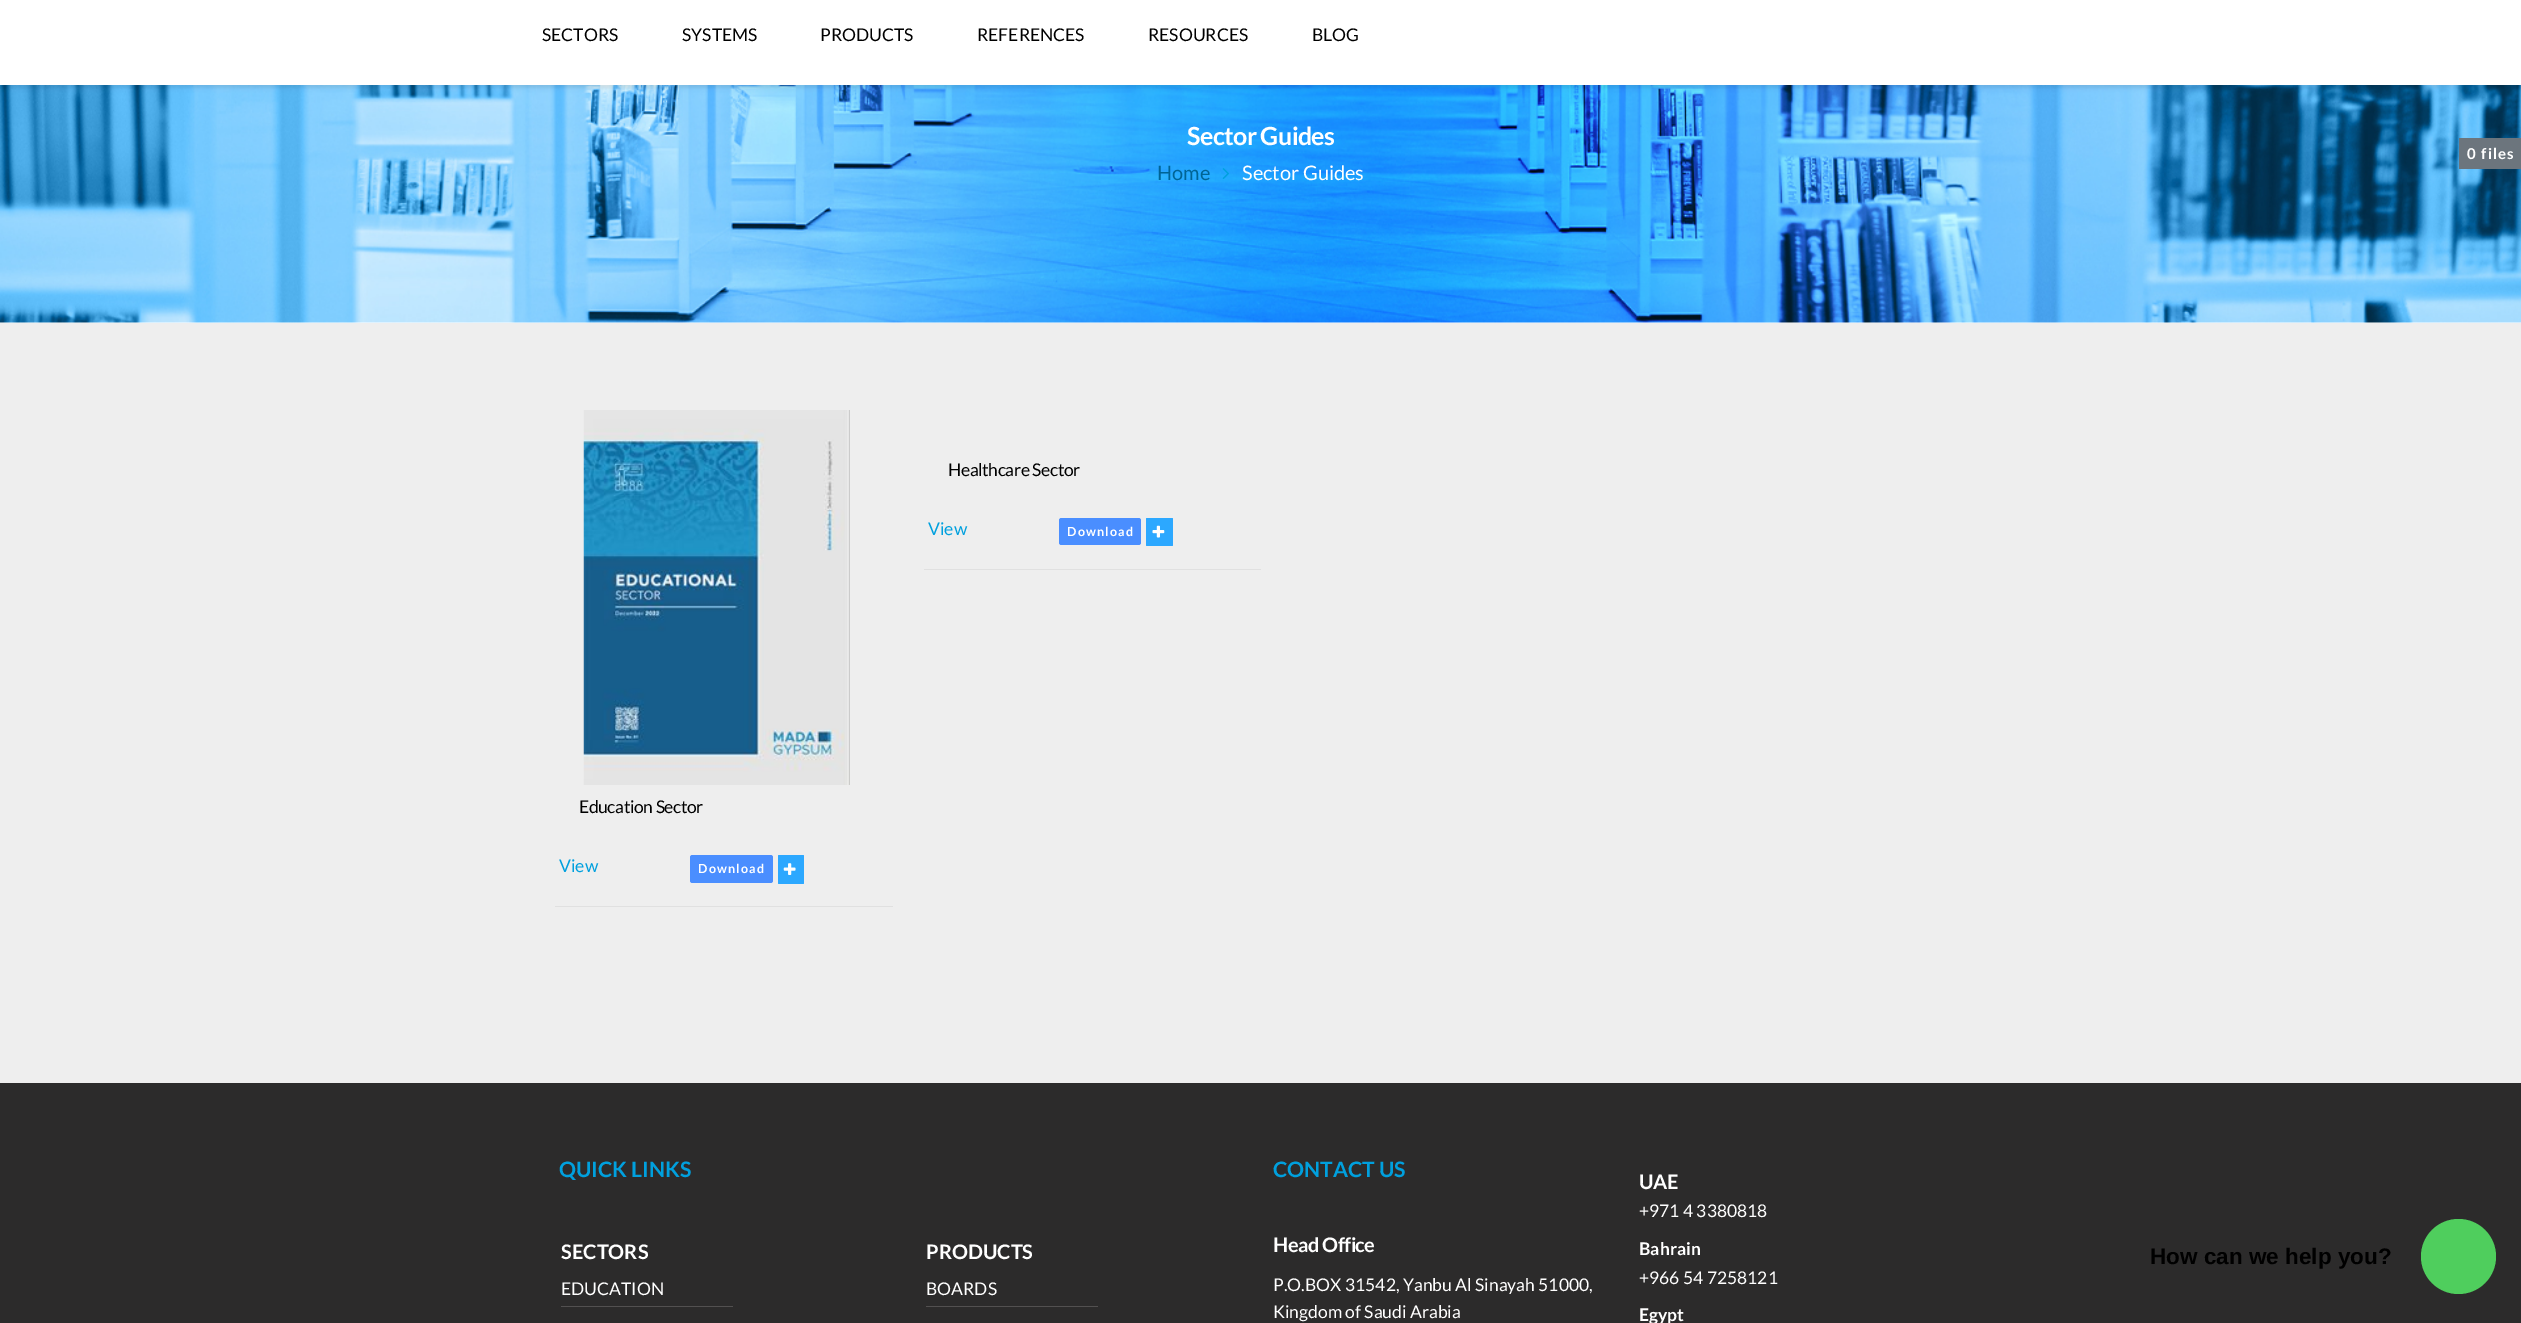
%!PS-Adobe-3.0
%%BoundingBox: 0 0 2521 1323
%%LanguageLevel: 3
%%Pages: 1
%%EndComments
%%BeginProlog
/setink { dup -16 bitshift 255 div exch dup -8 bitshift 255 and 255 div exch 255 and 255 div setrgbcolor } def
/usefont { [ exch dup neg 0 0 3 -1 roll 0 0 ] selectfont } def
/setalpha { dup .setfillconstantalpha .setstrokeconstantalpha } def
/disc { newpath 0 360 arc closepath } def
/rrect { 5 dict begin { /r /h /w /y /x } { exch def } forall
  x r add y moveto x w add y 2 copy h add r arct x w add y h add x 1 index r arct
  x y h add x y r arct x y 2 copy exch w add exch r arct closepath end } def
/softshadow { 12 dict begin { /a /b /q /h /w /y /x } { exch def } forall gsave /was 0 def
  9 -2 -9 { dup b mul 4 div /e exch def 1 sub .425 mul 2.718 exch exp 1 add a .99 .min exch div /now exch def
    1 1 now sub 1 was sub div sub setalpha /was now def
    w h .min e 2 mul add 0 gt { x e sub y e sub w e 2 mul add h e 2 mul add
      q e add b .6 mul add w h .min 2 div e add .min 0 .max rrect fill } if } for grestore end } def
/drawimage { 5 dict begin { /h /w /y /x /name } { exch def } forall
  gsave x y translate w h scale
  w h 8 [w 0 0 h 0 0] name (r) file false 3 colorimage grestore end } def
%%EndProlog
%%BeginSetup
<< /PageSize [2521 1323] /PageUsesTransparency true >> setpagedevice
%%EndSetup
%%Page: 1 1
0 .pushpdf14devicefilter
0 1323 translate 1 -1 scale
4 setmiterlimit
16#FFFFFF setink
0 0 2521 1323 rectfill
(img1.raw) 0 85 2521 238 drawimage
16#000000 setink
-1 -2 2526 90 0 2 0.1 softshadow
16#FFFFFF setink
0 0 2521 85 rectfill
/Lato-Regular 17.5 usefont
16#000000 setink
[
    [(SECTORS) 542 41]
    [(SYSTEMS) 682 41]
    [(PRODUCTS) 820 41]
    [(REFERENCES) 977 41]
    [(RESOURCES) 1148 41]
    [(BLOG) 1312 41]
] { aload pop moveto show } forall
/Lato-Bold 25 usefont
16#FFFFFF setink
1187 145 moveto -0.6 0 (Sector Guides) ashow
/Lato-Regular 20 usefont
16#006495 setink
1157 180 moveto (Home) show
(img2.raw) 1222 168 7 11 drawimage
16#FFFFFF setink
1242 180 moveto (Sector Guides) show
16#EEEEEE setink
0 323 2521 760 rectfill
/Lato-Regular 17.5 usefont
16#000000 setink
948 476 moveto -0.4 0 (Healthcare Sector) ashow
16#00A0DE setink
928 535 moveto (View) show
16#4A8EFF setink
1059 518 82 27 2.5 rrect fill
/Lato-Bold 12.5 usefont
16#FFFFFF setink
1067 536 moveto 1.25 0 (Download) ashow
16#2CA8FF setink
1146 518 27 28 1 rrect fill
(img3.raw) 1152 525 13 13 drawimage
16#E0E0E0 setink
924 569 337 1 rectfill
(img4.raw) 583 410 267 375 drawimage
/Lato-Regular 17.5 usefont
16#000000 setink
579 813 moveto -0.4 0 (Education Sector) ashow
16#00A0DE setink
559 872 moveto (View) show
16#4A8EFF setink
690 855 83 28 2.5 rrect fill
/Lato-Bold 12.5 usefont
16#FFFFFF setink
698 873 moveto 1.25 0 (Download) ashow
16#2CA8FF setink
778 855 26 29 1 rrect fill
(img5.raw) 783 863 13 12 drawimage
16#E0E0E0 setink
555 906 338 1 rectfill
16#2C2B2B setink
0 1083 2521 240 rectfill
/Lato-Bold 21.25 usefont
16#00A0DE setink
559 1177 moveto (QUICK LINKS) show
/Lato-Bold 20 usefont
16#FFFFFF setink
561 1259 moveto (SECTORS) show
16#525050 setink
561 1306 172 1 rectfill
/Lato-Regular 17.5 usefont
16#FFFFFF setink
561 1295 moveto (EDUCATION) show
/Lato-Bold 20 usefont
926 1259 moveto (PRODUCTS) show
16#525050 setink
926 1306 172 1 rectfill
/Lato-Regular 17.5 usefont
16#FFFFFF setink
926 1295 moveto (BOARDS) show
/Lato-Bold 21.25 usefont
16#00A0DE setink
1273 1177 moveto (CONTACT US) show
/Lato-Bold 20 usefont
16#FFFFFF setink
1273 1252 moveto -0.5 0 (Head Office) ashow
/Lato-Regular 17.5 usefont
1273 1291 moveto (P.O.BOX 31542, Yanbu Al Sinayah 51000,) show
1273 1318 moveto (Kingdom of Saudi Arabia) show
/Lato-Bold 20 usefont
1639 1189 moveto -0.5 0 (UAE) ashow
/Lato-Regular 17.5 usefont
1639 1217 moveto (+971 4 3380818) show
/Lato-Bold 17.5 usefont
1639 1255 moveto (Bahrain) show
/Lato-Regular 17.5 usefont
1639 1284 moveto (+966 54 7258121) show
/Lato-Bold 17.5 usefont
1639 1321 moveto (Egypt) show
16#6C757D setink
2459 138 62 31 rectfill
/Lato-Bold 15 usefont
16#FFFFFF setink
2467 159 moveto 1.25 0 (0 files) ashow
16#4FCE5D setink
2458.5 1256.5 37.5 disc fill
/LiberationSans-Bold 22.5 usefont
16#000000 setink
2150 1264 moveto (How can we help you?) show
.poppdf14devicefilter showpage
%%EOF
